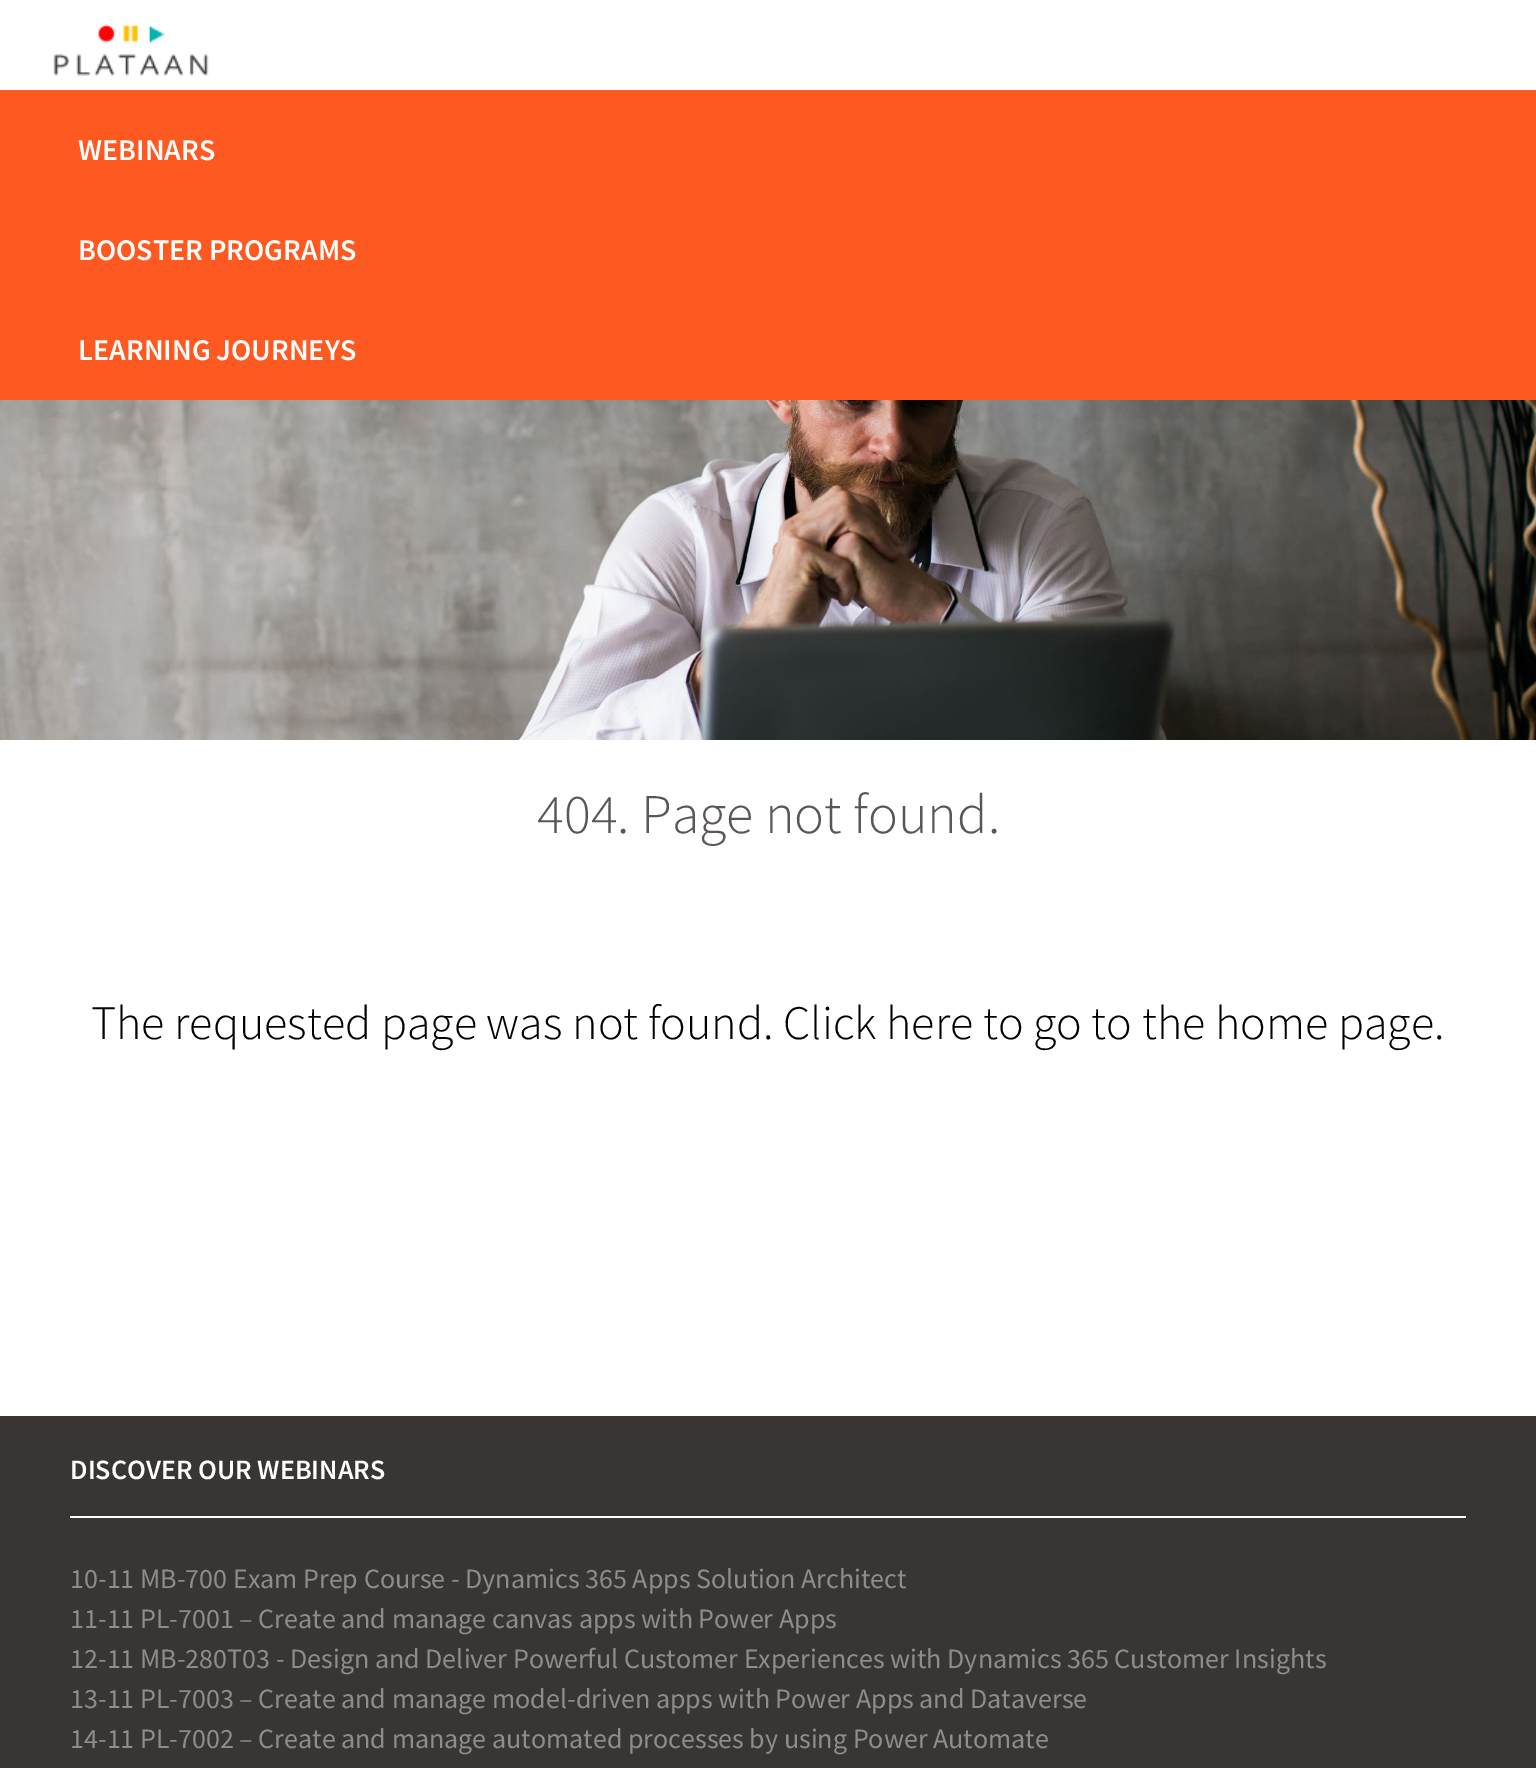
%!PS-Adobe-3.0
%%BoundingBox: 0 0 1536 1768
%%LanguageLevel: 3
%%Pages: 1
%%EndComments
%%BeginProlog
/setink { dup -16 bitshift 255 div exch dup -8 bitshift 255 and 255 div exch 255 and 255 div setrgbcolor } def
/usefont { [ exch dup neg 0 0 3 -1 roll 0 0 ] selectfont } def
/drawimage { 5 dict begin { /h /w /y /x /name } { exch def } forall
  gsave x y translate w h scale
  w h 8 [w 0 0 h 0 0] name (r) file false 3 colorimage grestore end } def
%%EndProlog
%%BeginSetup
<< /PageSize [1536 1768] >> setpagedevice
%%EndSetup
%%Page: 1 1
0 1768 translate 1 -1 scale
4 setmiterlimit
16#FFFFFF setink
0 0 1536 1768 rectfill
16#FF5922 setink
0 90 1536 310 rectfill
(img1.raw) 53 24 156 53 drawimage
/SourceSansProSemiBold-SemiBold 30 usefont
16#FFFFFF setink
[
    [(WEBINARS) 78 160]
    [(BOOSTER PROGRAMS) 78 260]
    [(LEARNING JOURNEYS) 78 360]
] { aload pop moveto show } forall
(img2.raw) 0 400 1536 340 drawimage
/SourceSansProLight-Light 56 usefont
16#5A5655 setink
537 833 moveto (404. Page not found.) show
/SourceSansProLight-Light 48 usefont
16#000000 setink
91 1039 moveto (The requested page was not found. Click here to go to the home page.) show
16#393533 setink
0 1416 1536 352 rectfill
16#FFFFFF setink
70 1516 1396 2 rectfill
/SourceSansProSemiBold-SemiBold 28 usefont
70 1479 moveto (DISCOVER OUR WEBINARS) show
/SourceSansPro-Regular 28 usefont
16#908C8B setink
[
    [(10-11 MB-700 Exam Prep Course - Dynamics 365 Apps Solution Architect) 70 1588]
    [(11-11 PL-7001 – Create and manage canvas apps with Power Apps) 70 1628]
    [(12-11 MB-280T03 - Design and Deliver Powerful Customer Experiences with Dynamics 365 Customer Insights) 70 1668]
    [(13-11 PL-7003 – Create and manage model-driven apps with Power Apps and Dataverse) 70 1708]
    [(14-11 PL-7002 – Create and manage automated processes by using Power Automate) 70 1748]
] { aload pop moveto show } forall
showpage
%%EOF
